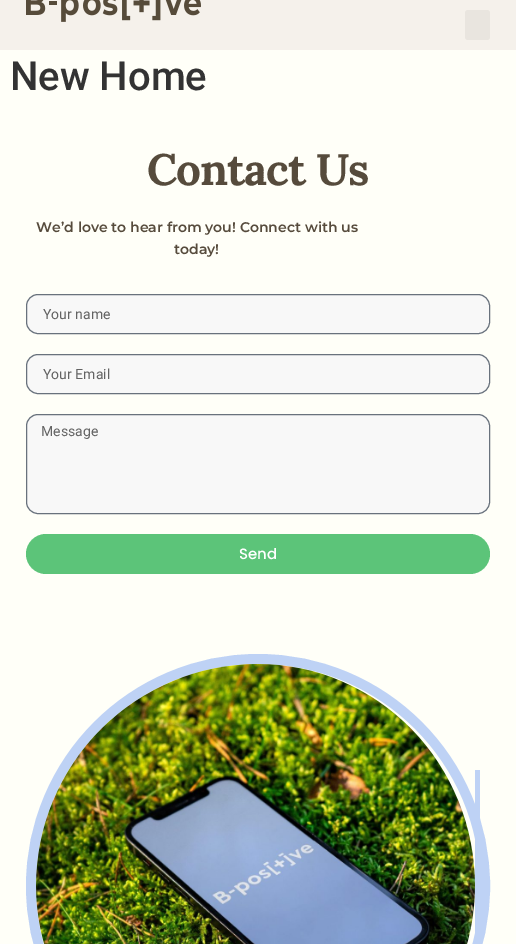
%!PS-Adobe-3.0
%%BoundingBox: 0 0 516 944
%%LanguageLevel: 3
%%Pages: 1
%%EndComments
%%BeginProlog
/setink { dup -16 bitshift 255 div exch dup -8 bitshift 255 and 255 div exch 255 and 255 div setrgbcolor } def
/usefont { [ exch dup neg 0 0 3 -1 roll 0 0 ] selectfont } def
/disc { newpath 0 360 arc closepath } def
/rrect { 5 dict begin { /r /h /w /y /x } { exch def } forall
  x r add y moveto x w add y 2 copy h add r arct x w add y h add x 1 index r arct
  x y h add x y r arct x y 2 copy exch w add exch r arct closepath end } def
/drawimage { 5 dict begin { /h /w /y /x /name } { exch def } forall
  gsave x y translate w h scale
  w h 8 [w 0 0 h 0 0] name (r) file false 3 colorimage grestore end } def
%%EndProlog
%%BeginSetup
<< /PageSize [516 944] >> setpagedevice
%%EndSetup
%%Page: 1 1
0 944 translate 1 -1 scale
4 setmiterlimit
16#FFFFF8 setink
0 0 516 944 rectfill
16#F5F1EB setink
0 0 516 50 rectfill
(img1.raw) 26 0 175 22 drawimage
16#E9E5DF setink
465 10 25 30 3 rrect fill
/Roboto-Medium 40 usefont
16#333333 setink
10 90 moveto (New Home) show
/Lora-Bold 44 usefont
16#564B3C setink
147 185 moveto -1 0 (Contact Us) ashow
/Montserrat-SemiBold 14 usefont
36 232 moveto (We’d love to hear from you! Connect with us) show
174 254 moveto (today!) show
16#F8F8F8 setink
26.5 294.5 463 39 11.5 rrect gsave fill grestore
16#69727D setink
stroke
/Roboto-Regular 14 usefont
16#636363 setink
43 319 moveto (Your name) show
16#F8F8F8 setink
26.5 354.5 463 39 11.5 rrect gsave fill grestore
16#69727D setink
stroke
16#636363 setink
43 379 moveto (Your Email) show
16#F8F8F8 setink
26.5 414.5 463 99 11.5 rrect gsave fill grestore
16#69727D setink
stroke
16#636363 setink
41 436 moveto (Message) show
16#5CC479 setink
26 534 464 40 20 rrect fill
/Poppins-Medium 15 usefont
16#FFFFFF setink
239 559 moveto (Send) show
16#BED2F5 setink
10 setlinewidth
258 886 227 disc stroke
475 770 5 163 rectfill
(img2.raw) 36 664 439 280 drawimage
showpage
%%EOF
